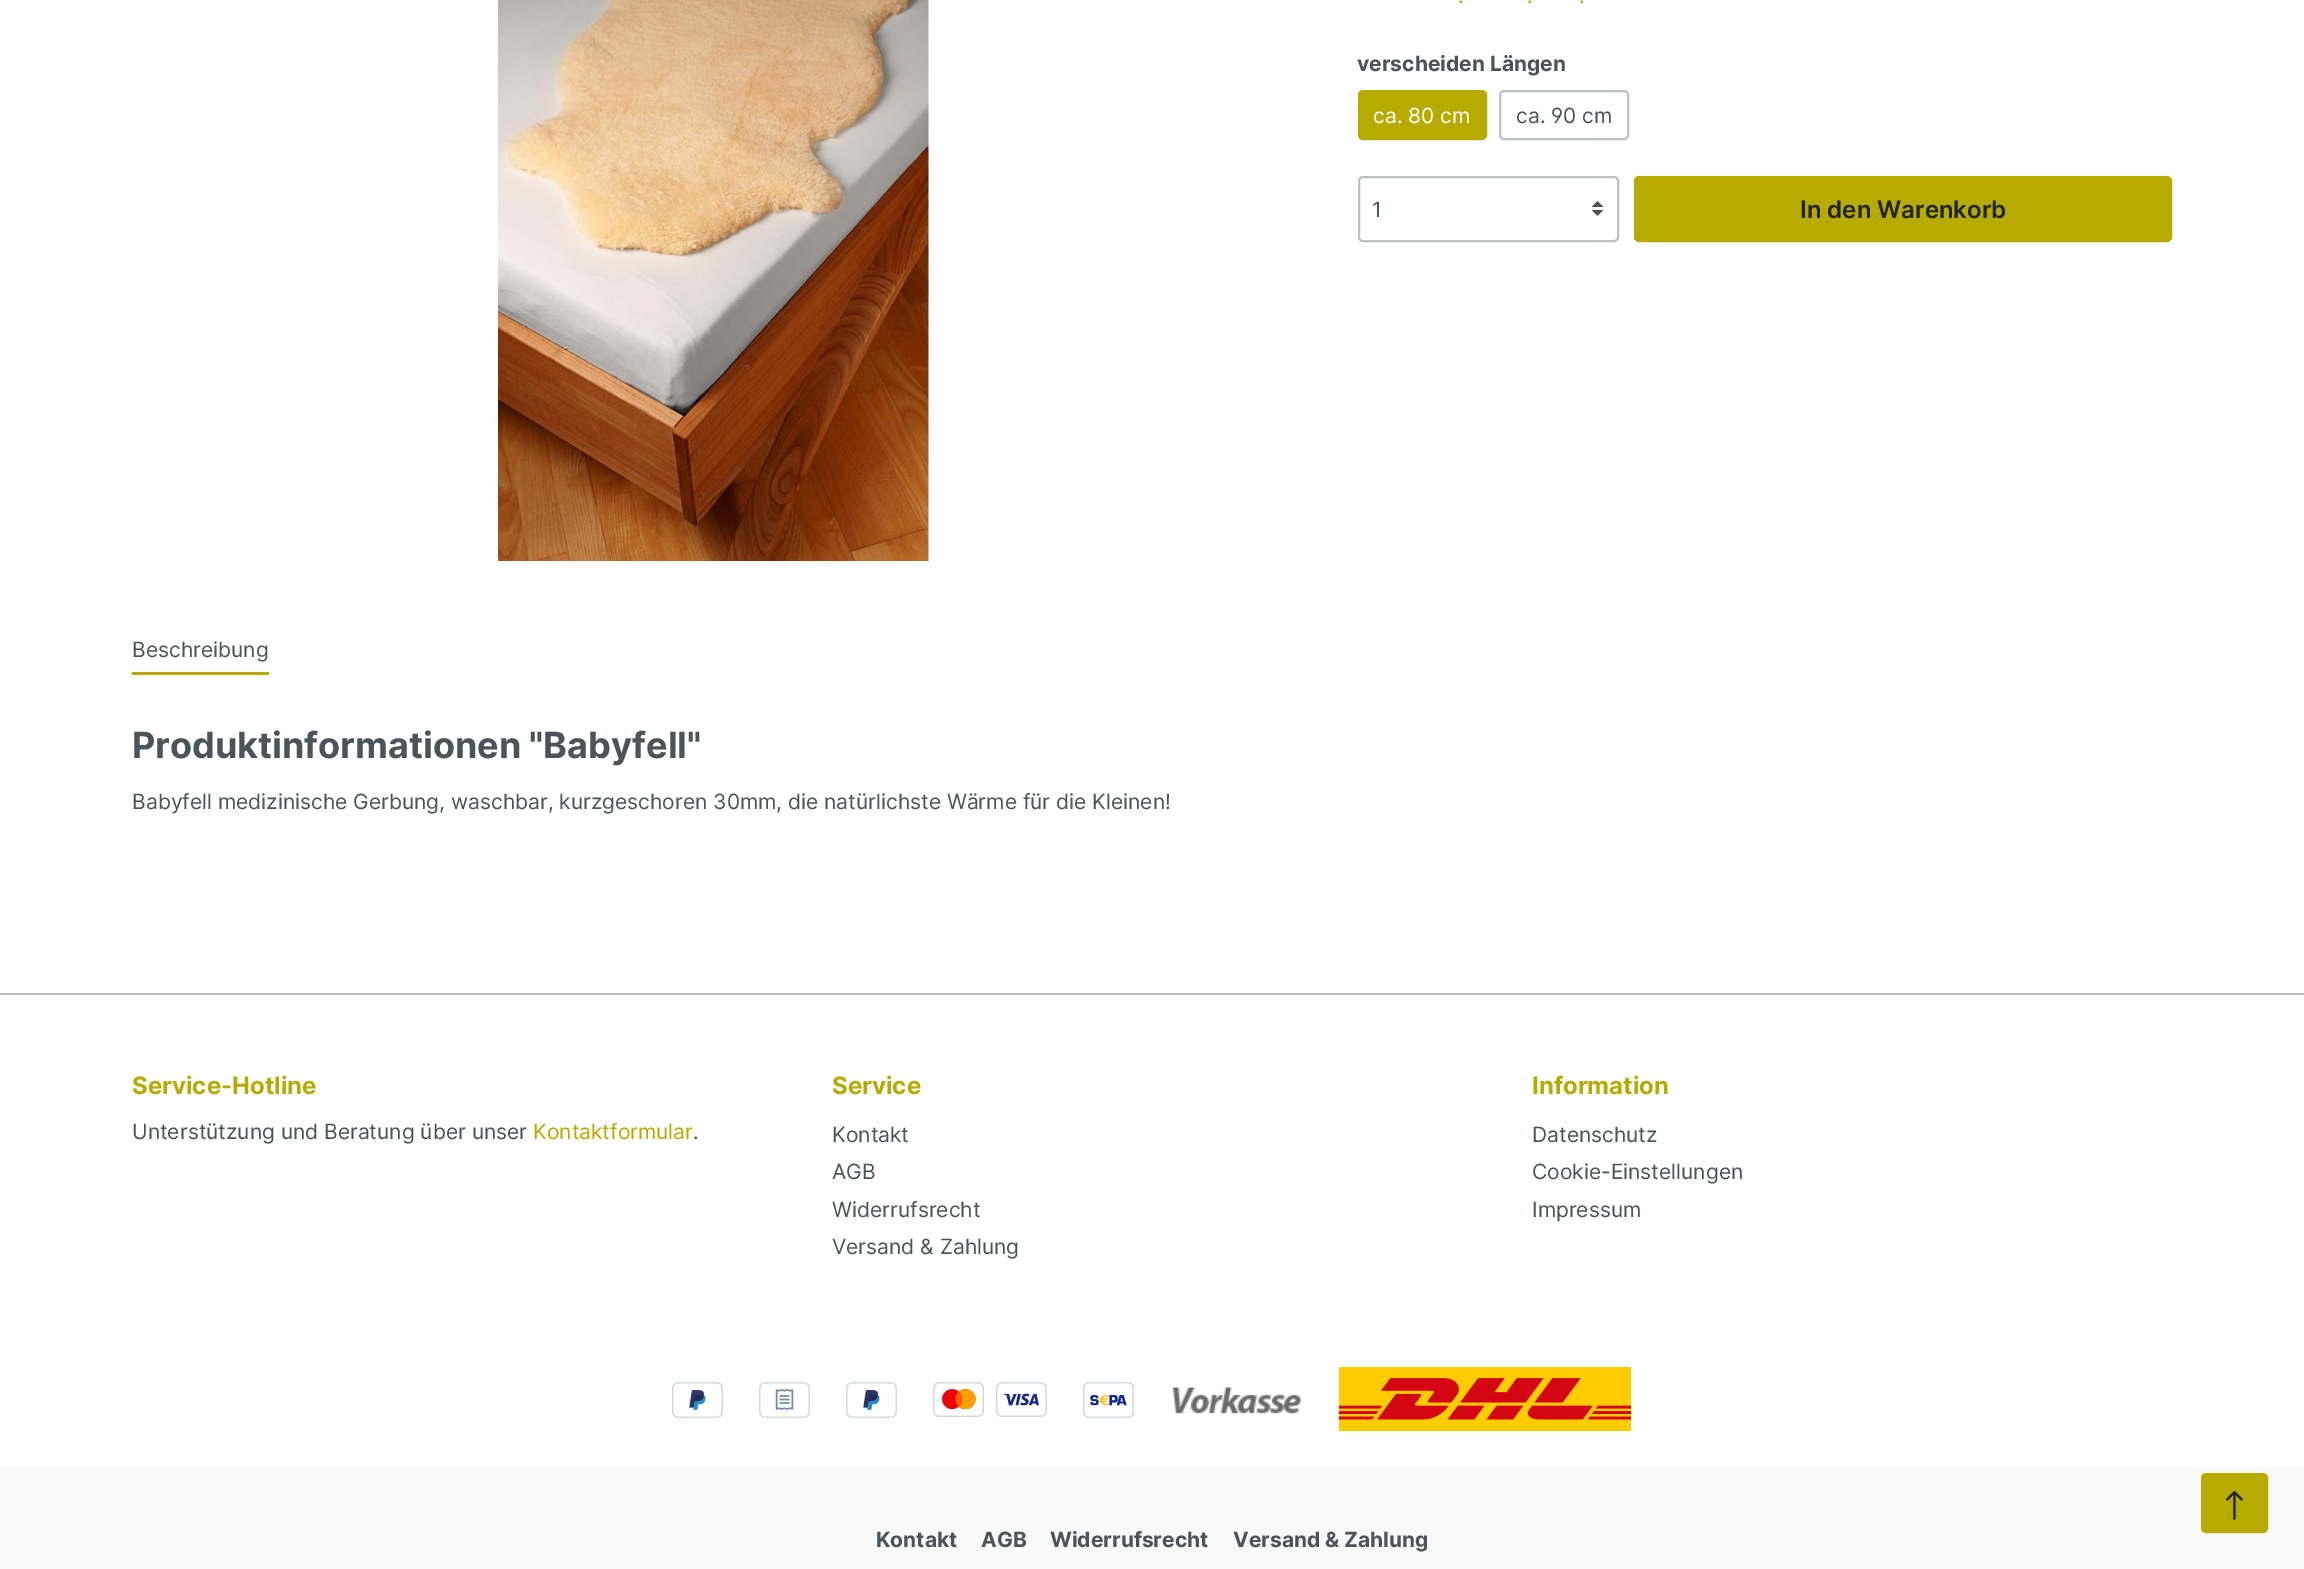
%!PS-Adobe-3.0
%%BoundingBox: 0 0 2304 1569
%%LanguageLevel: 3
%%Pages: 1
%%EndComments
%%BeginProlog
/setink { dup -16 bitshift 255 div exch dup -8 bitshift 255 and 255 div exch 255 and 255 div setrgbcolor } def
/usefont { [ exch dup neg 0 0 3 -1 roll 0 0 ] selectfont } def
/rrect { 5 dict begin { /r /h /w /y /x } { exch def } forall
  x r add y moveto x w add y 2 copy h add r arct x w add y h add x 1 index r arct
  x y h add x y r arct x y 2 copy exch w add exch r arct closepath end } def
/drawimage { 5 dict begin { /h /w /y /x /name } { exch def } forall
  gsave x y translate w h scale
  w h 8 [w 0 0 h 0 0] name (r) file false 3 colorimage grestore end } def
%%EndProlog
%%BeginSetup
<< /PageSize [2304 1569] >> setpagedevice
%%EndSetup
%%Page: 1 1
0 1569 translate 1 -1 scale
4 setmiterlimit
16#FFFFFF setink
0 0 2304 1569 rectfill
(img1.raw) 498 0 431 561 drawimage
/Inter-Regular 21 usefont
16#B7AB01 setink
[
    [(.) 1458 3]
    [(.) 1527 3]
    [(.) 1579 3]
] { aload pop moveto show } forall
/Inter-Bold 21 usefont
16#4A545B setink
1357 71 moveto (verscheiden Längen) show
16#B7AB01 setink
1359 91 127 48 4 rrect gsave fill grestore
2 setlinewidth
stroke
/Inter-Regular 21 usefont
16#FFFFFF setink
1373 123 moveto (ca. 80 cm) show
16#BCC1C7 setink
1500 91 128 48 4 rrect stroke
/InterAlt-Regular 21 usefont
16#4A545B setink
1516 123 moveto (ca. 90 cm) show
(img2.raw) 1592 201 12 15 drawimage
16#BCC1C7 setink
1359 177 259 64 4 rrect stroke
/Inter-Regular 21 usefont
16#4A545B setink
1372 217 moveto (1) show
16#B7AB01 setink
1635 177 536 64 4 rrect gsave fill grestore
stroke
/Inter-SemiBold 24 usefont
16#212529 setink
1800 218 moveto (In den Warenkorb) show
16#B7AB01 setink
132 672 137 3 rectfill
/Inter-Regular 21 usefont
16#4A545B setink
132 657 moveto (Beschreibung) show
/Inter-Bold 36 usefont
132 758 moveto (Produktinformationen "Babyfell") show
/Inter-Regular 21 usefont
132 809 moveto (Babyfell medizinische Gerbung, waschbar, kurzgeschoren 30mm, die natürlichste Wärme für die Kleinen!) show
16#BCC1C7 setink
0 993 2304 2 rectfill
/Inter-Bold 24 usefont
16#B7AB01 setink
132 1094 moveto (Service-Hotline) show
/Inter-Regular 21 usefont
16#4A545B setink
132 1139 moveto (Unterstützung und Beratung über unser) show
16#B7AB01 setink
533 1139 moveto (Kontaktformular) show
16#4A545B setink
693 1139 moveto (.) show
/Inter-Bold 24 usefont
16#B7AB01 setink
832 1094 moveto (Service) show
/Inter-Regular 21 usefont
16#4A545B setink
[
    [(Kontakt) 832 1142]
    [(AGB) 832 1179]
    [(Widerrufsrecht) 832 1217]
    [(Versand & Zahlung) 832 1254]
] { aload pop moveto show } forall
/Inter-Bold 24 usefont
16#B7AB01 setink
1532 1094 moveto (Information) show
/Inter-Regular 21 usefont
16#4A545B setink
[
    [(Datenschutz) 1532 1142]
    [(Cookie-Einstellungen) 1532 1179]
    [(Impressum) 1532 1217]
] { aload pop moveto show } forall
(img3.raw) 672 1382 51 36 drawimage
(img4.raw) 759 1382 51 36 drawimage
(img3.raw) 846 1382 51 36 drawimage
(img5.raw) 933 1382 114 35 drawimage
(img6.raw) 1083 1382 51 36 drawimage
(img7.raw) 1172 1387 129 27 drawimage
(img8.raw) 1338 1367 294 64 drawimage
16#F9F9F9 setink
0 1467 2304 102 rectfill
/Inter-Bold 21 usefont
16#4A545B setink
[
    [(Kontakt) 876 1547]
    [(AGB) 981 1547]
    [(Widerrufsrecht) 1050 1547]
    [(Versand & Zahlung) 1233 1547]
] { aload pop moveto show } forall
16#B7AB01 setink
2202 1474 65 58 4 rrect gsave fill grestore
stroke
(img9.raw) 2226 1491 17 29 drawimage
showpage
%%EOF
